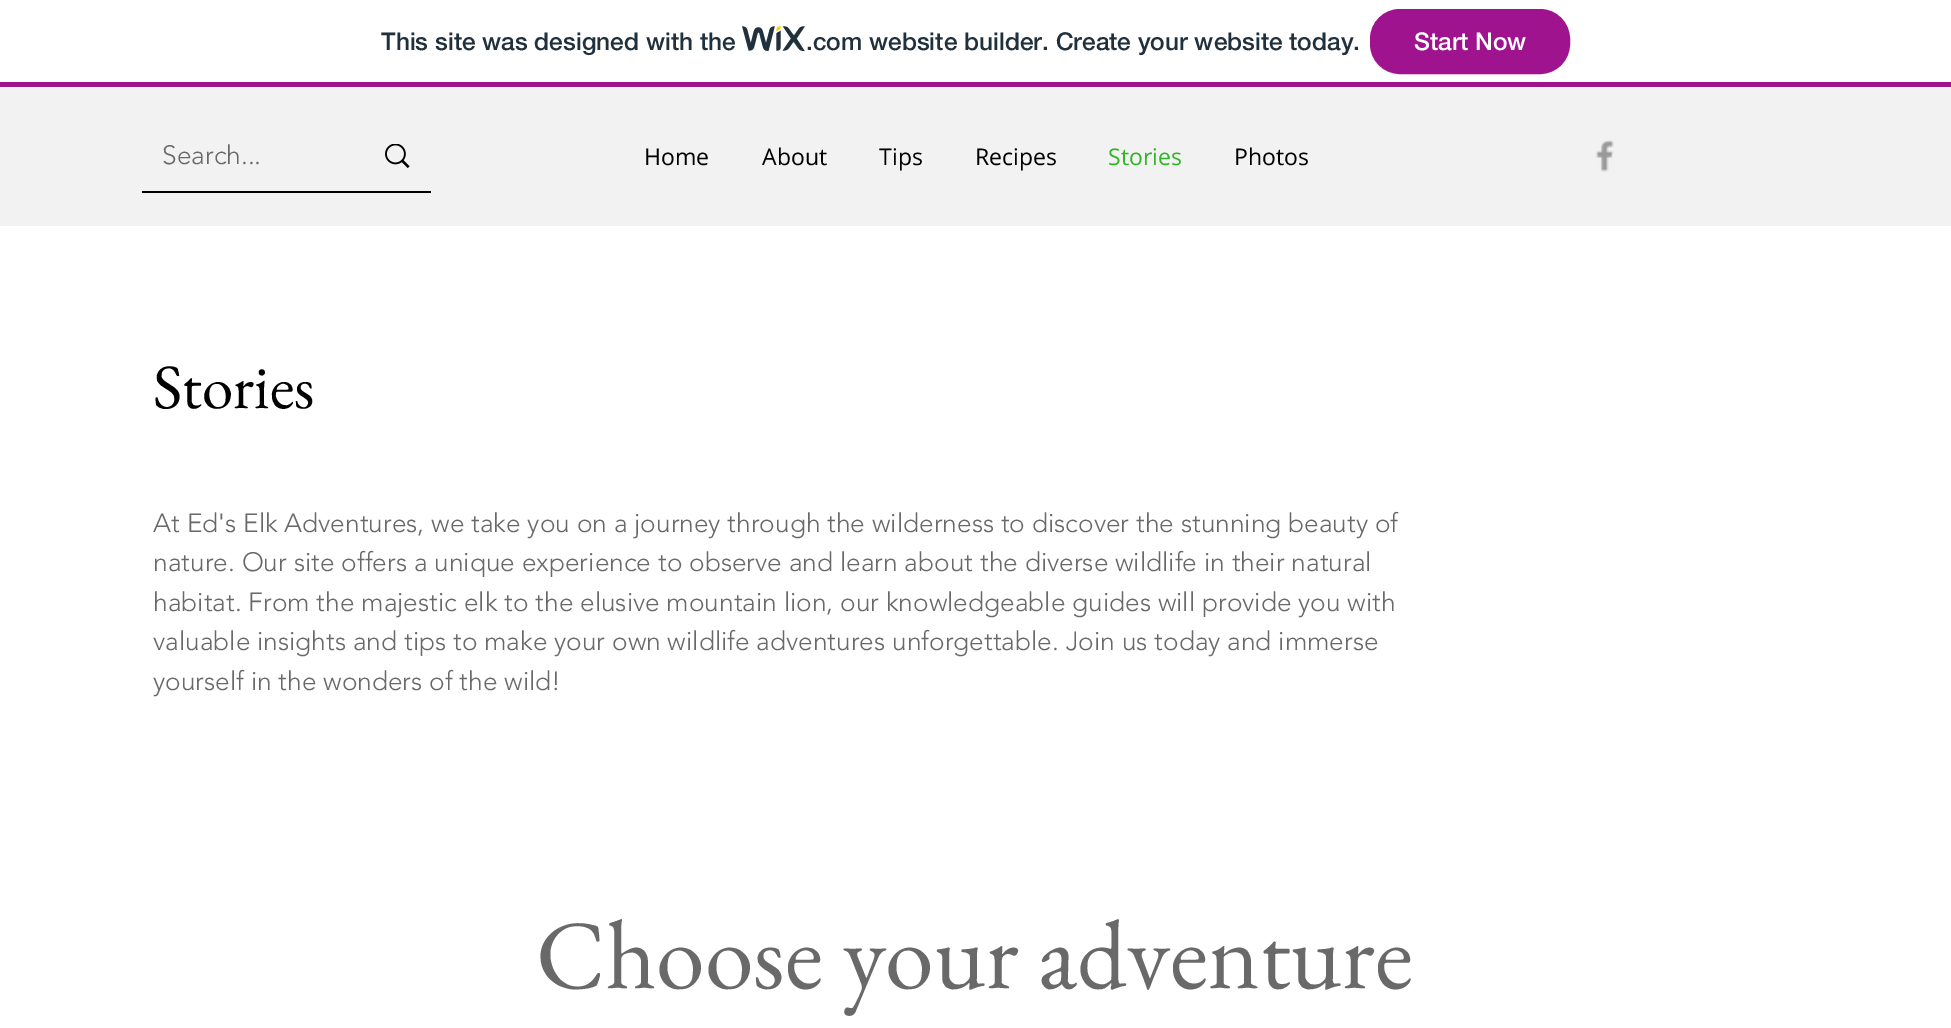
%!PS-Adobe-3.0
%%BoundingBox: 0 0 1951 1028
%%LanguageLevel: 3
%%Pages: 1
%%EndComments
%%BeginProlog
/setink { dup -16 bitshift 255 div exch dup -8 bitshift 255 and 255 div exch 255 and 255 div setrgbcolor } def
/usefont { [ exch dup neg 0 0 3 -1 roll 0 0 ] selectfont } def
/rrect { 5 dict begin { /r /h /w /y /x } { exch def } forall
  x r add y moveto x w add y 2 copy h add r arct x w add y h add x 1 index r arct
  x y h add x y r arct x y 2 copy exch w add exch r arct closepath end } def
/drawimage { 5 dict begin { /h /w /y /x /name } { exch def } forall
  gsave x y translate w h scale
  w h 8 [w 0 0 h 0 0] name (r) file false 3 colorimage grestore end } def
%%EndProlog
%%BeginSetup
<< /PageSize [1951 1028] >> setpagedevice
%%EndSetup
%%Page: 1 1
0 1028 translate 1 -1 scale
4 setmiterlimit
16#FFFFFF setink
0 0 1951 1028 rectfill
16#A0138E setink
0 82 1951 5 rectfill
/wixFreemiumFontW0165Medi-Medium 24.5 usefont
16#20303C setink
381 50 moveto (This site was designed with the) show
(img1.raw) 742 26 63 26 drawimage
806 50 moveto (.com website builder. Create your website today.) show
16#A0138E setink
1371 10 198 63 29 rrect gsave fill grestore
2 setlinewidth
stroke
16#FFFFFF setink
1414 50 moveto (Start Now) show
16#F2F2F2 setink
0 88 1951 138 rectfill
16#000000 setink
142 191 289 2 rectfill
/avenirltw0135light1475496-Light 26.25 usefont
16#696969 setink
162 164 moveto (Search...) show
(img2.raw) 385 144 25 24 drawimage
/OpenSans-Regular 23 usefont
16#000000 setink
[
    [(Home) 644 165]
    [(About) 762 165]
    [(Tips) 879 165]
    [(Recipes) 975 165]
] { aload pop moveto show } forall
16#32B427 setink
1108 165 moveto (Stories) show
16#000000 setink
1234 165 moveto (Photos) show
(img3.raw) 1595 140 19 32 drawimage
/EBGaramond-Regular 63 usefont
153 408 moveto (Stories) show
/avenirltw0135light1475496-Light 26.25 usefont
16#696969 setink
[
    [(At Ed's Elk Adventures, we take you on a journey through the wilderness to discover the stunning beauty of) 153 532]
    [(nature. Our site offers a unique experience to observe and learn about the diverse wildlife in their natural) 153 571]
    [(habitat. From the majestic elk to the elusive mountain lion, our knowledgeable guides will provide you with) 153 611]
    [(valuable insights and tips to make your own wildlife adventures unforgettable. Join us today and immerse) 153 650]
    [(yourself in the wonders of the wild!) 153 690]
] { aload pop moveto show } forall
/EBGaramond-Regular 98 usefont
536 988 moveto (Choose your adventure) show
showpage
%%EOF
